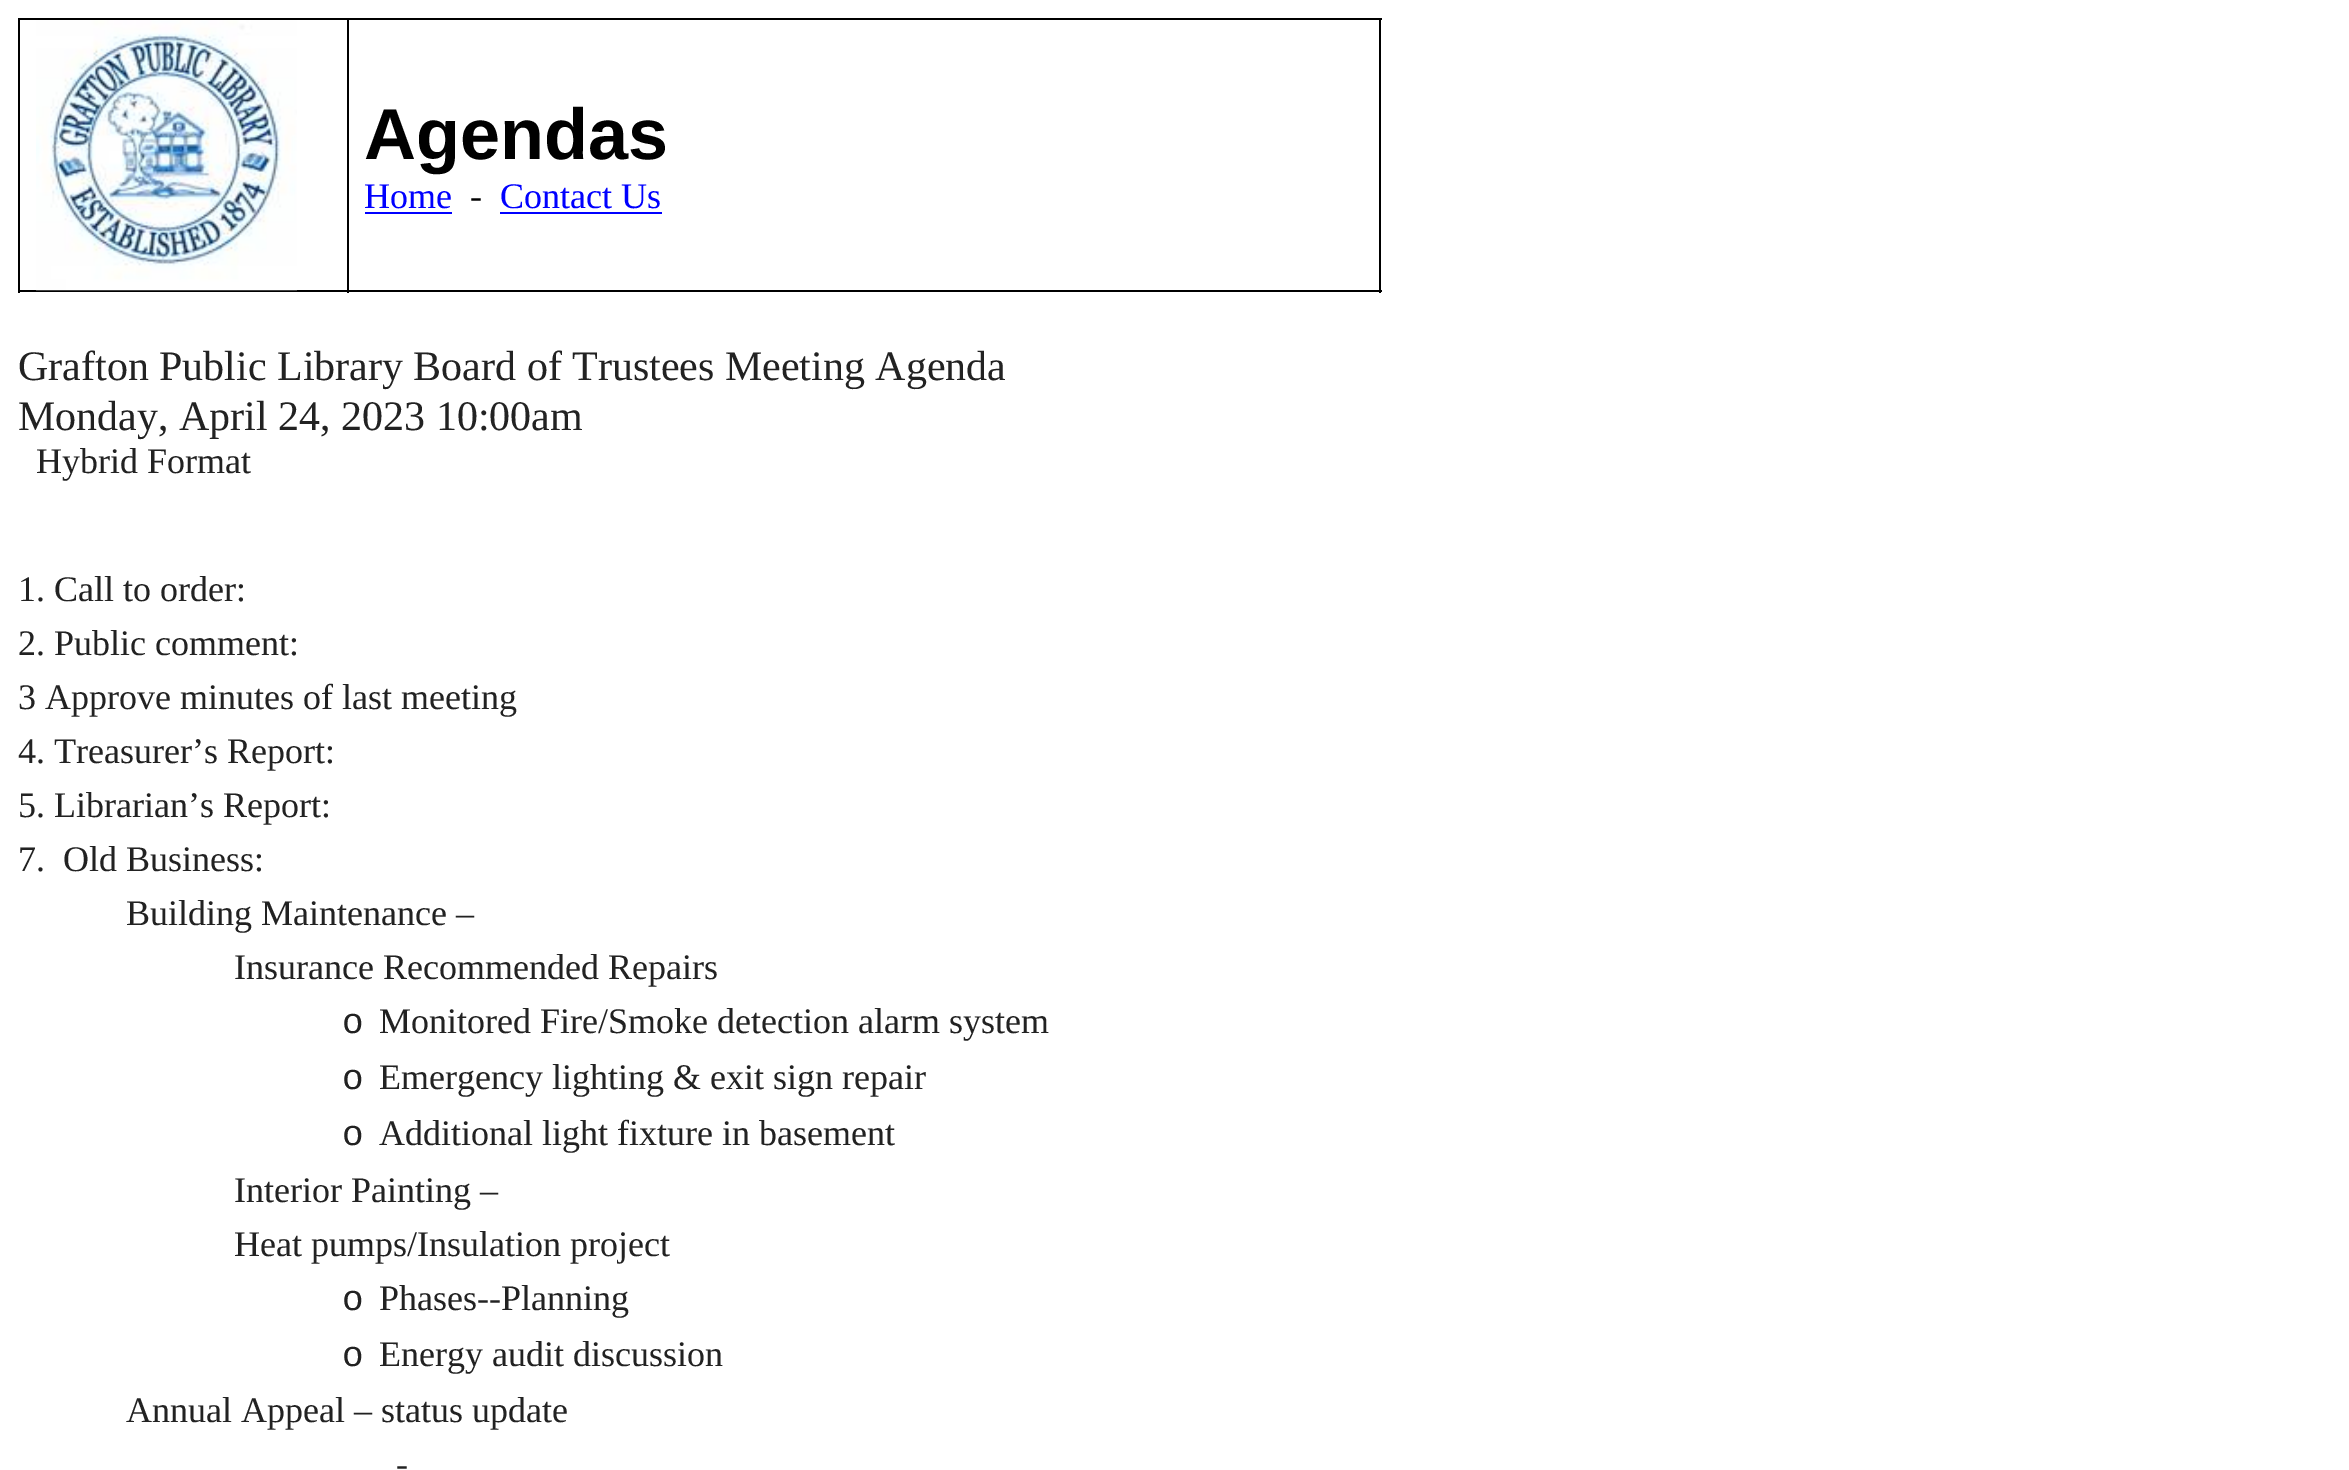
%!PS-Adobe-3.0
%%BoundingBox: 0 0 2349 1470
%%LanguageLevel: 3
%%Pages: 1
%%EndComments
%%BeginProlog
/setink { dup -16 bitshift 255 div exch dup -8 bitshift 255 and 255 div exch 255 and 255 div setrgbcolor } def
/usefont { [ exch dup neg 0 0 3 -1 roll 0 0 ] selectfont } def
/drawimage { 5 dict begin { /h /w /y /x /name } { exch def } forall
  gsave x y translate w h scale
  w h 8 [w 0 0 h 0 0] name (r) file false 3 colorimage grestore end } def
%%EndProlog
%%BeginSetup
<< /PageSize [2349 1470] >> setpagedevice
%%EndSetup
%%Page: 1 1
0 1470 translate 1 -1 scale
4 setmiterlimit
16#FFFFFF setink
0 0 2349 1470 rectfill
[
    [18 18 1364 2 16#000000]
    [1379 18 2 275 16#000000]
    [347 290 1035 2 16#000000]
    [347 18 2 275 16#000000]
    [18 290 331 2 16#000000]
    [18 18 2 275 16#000000]
] { aload pop setink rectfill } forall
(img1.raw) 36 20 261 271 drawimage
/LiberationSans-Bold 72 usefont
364 159 moveto (Agendas) show
/LiberationSerif-Regular 36 usefont
16#0000FF setink
364 208 moveto (Home) show
365 212 87 2 rectfill
16#000000 setink
470 208 moveto (-) show
16#0000FF setink
500 208 moveto (Contact Us) show
500 212 162 2 rectfill
/LiberationSerif-Regular 42 usefont
16#222222 setink
18 380 moveto (Grafton Public Library Board of Trustees Meeting Agenda) show
18 430 moveto (Monday, April 24, 2023 10:00am) show
/LiberationSerif-Regular 36 usefont
[
    [(Hybrid Format) 36 473]
    [(1. Call to order:) 18 601]
    [(2. Public comment:) 18 655]
    [(3 Approve minutes of last meeting) 18 709]
    [(4. Treasurer’s Report:) 18 763]
    [(5. Librarian’s Report:) 18 817]
    [(7.  Old Business:) 18 871]
    [(Building Maintenance –) 126 925]
    [(Insurance Recommended Repairs) 234 979]
] { aload pop moveto show } forall
/LiberationMono-Regular 36 usefont
342 1033 moveto (o) show
/LiberationSerif-Regular 36 usefont
379 1033 moveto (Monitored Fire/Smoke detection alarm system) show
/LiberationMono-Regular 36 usefont
342 1089 moveto (o) show
/LiberationSerif-Regular 36 usefont
379 1089 moveto (Emergency lighting & exit sign repair) show
/LiberationMono-Regular 36 usefont
342 1145 moveto (o) show
/LiberationSerif-Regular 36 usefont
[
    [(Additional light fixture in basement) 379 1145]
    [(Interior Painting –) 234 1202]
    [(Heat pumps/Insulation project) 234 1256]
] { aload pop moveto show } forall
/LiberationMono-Regular 36 usefont
342 1310 moveto (o) show
/LiberationSerif-Regular 36 usefont
379 1310 moveto (Phases--Planning) show
/LiberationMono-Regular 36 usefont
342 1366 moveto (o) show
/LiberationSerif-Regular 36 usefont
[
    [(Energy audit discussion) 379 1366]
    [(Annual Appeal – status update) 126 1422]
    [(-) 396 1476]
] { aload pop moveto show } forall
showpage
%%EOF
